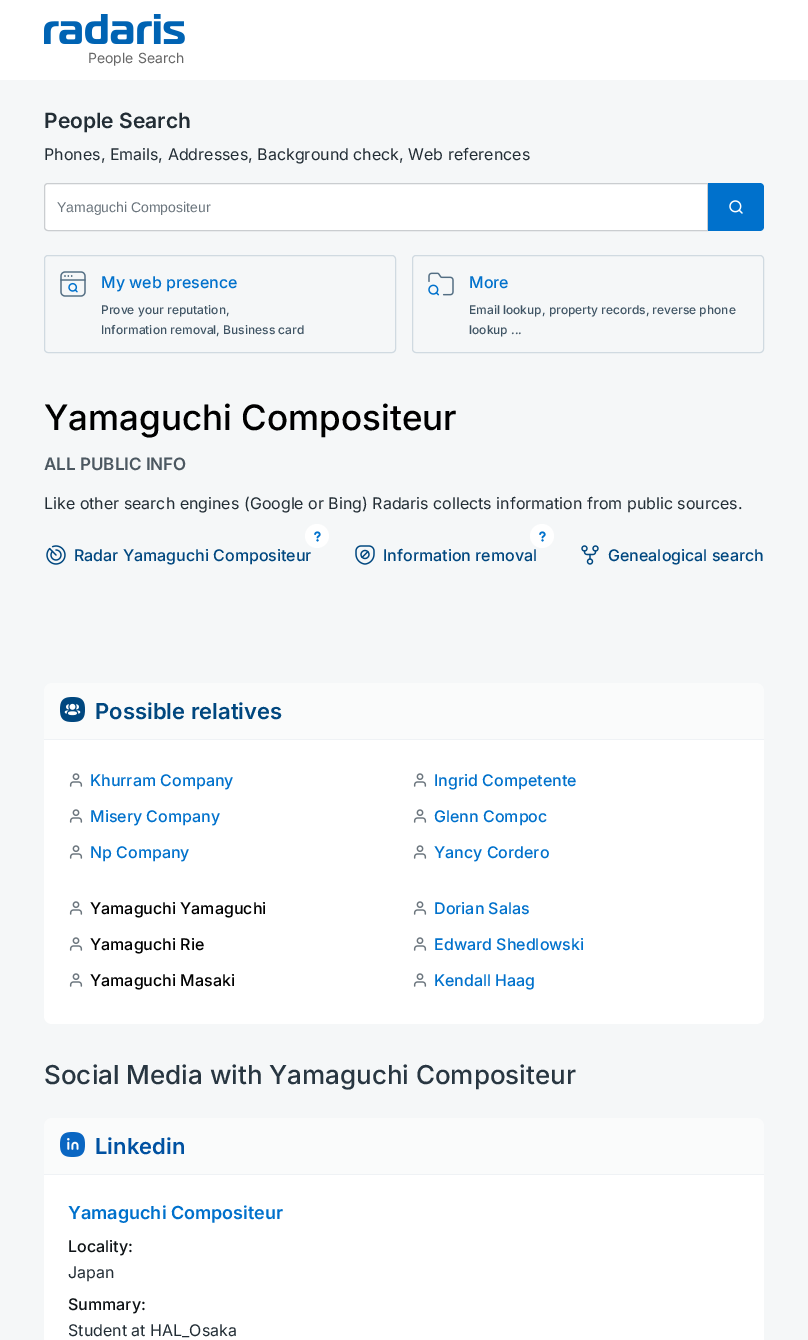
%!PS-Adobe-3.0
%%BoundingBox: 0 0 808 1340
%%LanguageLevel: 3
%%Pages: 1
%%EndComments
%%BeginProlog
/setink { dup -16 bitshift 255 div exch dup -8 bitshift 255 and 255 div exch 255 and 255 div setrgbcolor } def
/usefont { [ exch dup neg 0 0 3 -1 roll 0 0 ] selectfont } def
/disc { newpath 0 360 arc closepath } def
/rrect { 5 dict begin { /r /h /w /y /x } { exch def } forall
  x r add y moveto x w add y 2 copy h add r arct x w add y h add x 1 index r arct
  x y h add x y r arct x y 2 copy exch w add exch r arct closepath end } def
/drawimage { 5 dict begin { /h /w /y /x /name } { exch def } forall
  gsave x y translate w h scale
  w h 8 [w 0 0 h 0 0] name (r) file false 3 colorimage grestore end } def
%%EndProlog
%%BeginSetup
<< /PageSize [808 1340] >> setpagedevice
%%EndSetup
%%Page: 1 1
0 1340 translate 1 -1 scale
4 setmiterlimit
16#F5F7F8 setink
0 0 808 1340 rectfill
16#FFFFFF setink
0 0 808 80 rectfill
(img1.raw) 44 14 141 30 drawimage
/Inter-Regular 14 usefont
16#666666 setink
88 63 moveto (People Search) show
/Inter-SemiBold 21 usefont
16#222D35 setink
44 128 moveto (People Search) show
/Inter-Regular 16 usefont
44 160 moveto (Phones, Emails, Addresses, Background check, Web references) show
16#FFFFFF setink
48 183.5 moveto 707.5 183.5 lineto 707.5 230.5 lineto 48 230.5 lineto 46 230.5 44.5 229 44.5 227 curveto 44.5 187 lineto 44.5 185 46 183.5 48 183.5 curveto closepath gsave fill grestore
16#CACDD0 setink
stroke
/LiberationSans-Regular 14 usefont
16#6B757D setink
57 212 moveto (Yamaguchi Compositeur) show
16#0071CC setink
708 183 moveto 760 183 lineto 762 183 764 185 764 187 curveto 764 227 lineto 764 229 762 231 760 231 curveto 708 231 lineto closepath fill
(img2.raw) 729 200 14 14 drawimage
(img3.raw) 60 271 26 26 drawimage
16#D0DAE1 setink
44.5 255.5 351 97 3.5 rrect stroke
/Inter-Medium 16 usefont
16#0071CC setink
101 288 moveto (My web presence) show
/Inter-Medium 12 usefont
16#3F5464 setink
101 314 moveto (Prove your reputation,) show
101 334 moveto (Information removal, Business card) show
(img4.raw) 428 272 26 24 drawimage
16#D0DAE1 setink
412.5 255.5 351 97 3.5 rrect stroke
/Inter-Medium 16 usefont
16#0071CC setink
469 288 moveto (More) show
/Inter-Medium 12 usefont
16#3F5464 setink
469 314 moveto (Email lookup, рroperty records, reverse phone) show
469 334 moveto (lookup ...) show
/Inter-Medium 35 usefont
16#000000 setink
44 430 moveto (Yamaguchi Compositeur) show
/Inter-SemiBold 17 usefont
16#4C5861 setink
44 470 moveto (ALL PUBLIC INFO) show
/Inter-Regular 16 usefont
16#222D35 setink
44 509 moveto (Like other search engines \(Google or Bing\) Radaris collects information from public sources.) show
16#FFFFFF setink
317 536 12 disc fill
(img5.raw) 314 531 7 11 drawimage
(img6.raw) 46 545 20 20 drawimage
/Inter-Medium 16 usefont
16#00477F setink
74 561 moveto (Radar Yamaguchi Compositeur) show
16#FFFFFF setink
542 536 12 disc fill
(img5.raw) 539 531 7 11 drawimage
(img7.raw) 355 545 20 20 drawimage
16#00477F setink
383 561 moveto (Information removal) show
(img8.raw) 581 545 18 20 drawimage
608 561 moveto (Genealogical search) show
16#FAFBFB setink
52 683 moveto 756 683 lineto 760.5 683 764 686.5 764 691 curveto 764 740 lineto 44 740 lineto 44 691 lineto 44 686.5 47.5 683 52 683 curveto closepath fill
(img9.raw) 60 697 25 25 drawimage
16#EFF2F5 setink
44 739 720 1 rectfill
/Inter-SemiBold 22 usefont
16#00477F setink
95 719 moveto (Possible relatives) show
16#FFFFFF setink
44 740 moveto 764 740 lineto 764 1016 lineto 764 1020.5 760.5 1024 756 1024 curveto 52 1024 lineto 47.5 1024 44 1020.5 44 1016 curveto closepath fill
(img10.raw) 69 773 14 14 drawimage
/Inter-Medium 16 usefont
16#0071CC setink
90 786 moveto (Khurram Company) show
(img10.raw) 413 773 14 14 drawimage
434 786 moveto (Ingrid Competente) show
(img10.raw) 69 809 14 14 drawimage
90 822 moveto (Misery Company) show
(img10.raw) 413 809 14 14 drawimage
434 822 moveto (Glenn Compoc) show
(img10.raw) 69 845 14 14 drawimage
90 858 moveto (Np Company) show
(img10.raw) 413 845 14 14 drawimage
434 858 moveto (Yancy Cordero) show
(img10.raw) 69 901 14 14 drawimage
16#000000 setink
90 914 moveto (Yamaguchi Yamaguchi) show
(img10.raw) 413 901 14 14 drawimage
16#0071CC setink
434 914 moveto (Dorian Salas) show
(img10.raw) 69 937 14 14 drawimage
16#000000 setink
90 950 moveto (Yamaguchi Rie) show
(img10.raw) 413 937 14 14 drawimage
16#0071CC setink
434 950 moveto (Edward Shedlowski) show
(img10.raw) 69 973 14 14 drawimage
16#000000 setink
90 986 moveto (Yamaguchi Masaki) show
(img10.raw) 413 973 14 14 drawimage
16#0071CC setink
434 986 moveto (Kendall Haag) show
/Inter-Medium 26 usefont
16#283641 setink
44 1084 moveto (Social Media with Yamaguchi Compositeur) show
16#FAFBFB setink
52 1118 moveto 756 1118 lineto 760.5 1118 764 1121.5 764 1126 curveto 764 1175 lineto 44 1175 lineto 44 1126 lineto 44 1121.5 47.5 1118 52 1118 curveto closepath fill
(img11.raw) 60 1132 25 25 drawimage
16#EFF2F5 setink
44 1174 720 1 rectfill
/Inter-SemiBold 22 usefont
16#0051A1 setink
95 1154 moveto (Linkedin) show
16#FFFFFF setink
44 1175 720 165 rectfill
/Inter-SemiBold 18 usefont
16#0071CC setink
68 1219 moveto (Yamaguchi Compositeur) show
/Inter-Medium 16 usefont
16#0E1316 setink
68 1252 moveto (Locality:) show
/Inter-Regular 16 usefont
16#222D35 setink
68 1278 moveto (Japan) show
/Inter-Medium 16 usefont
16#0E1316 setink
68 1310 moveto (Summary:) show
/Inter-Regular 16 usefont
16#222D35 setink
68 1336 moveto (Student at HAL_Osaka) show
showpage
%%EOF
